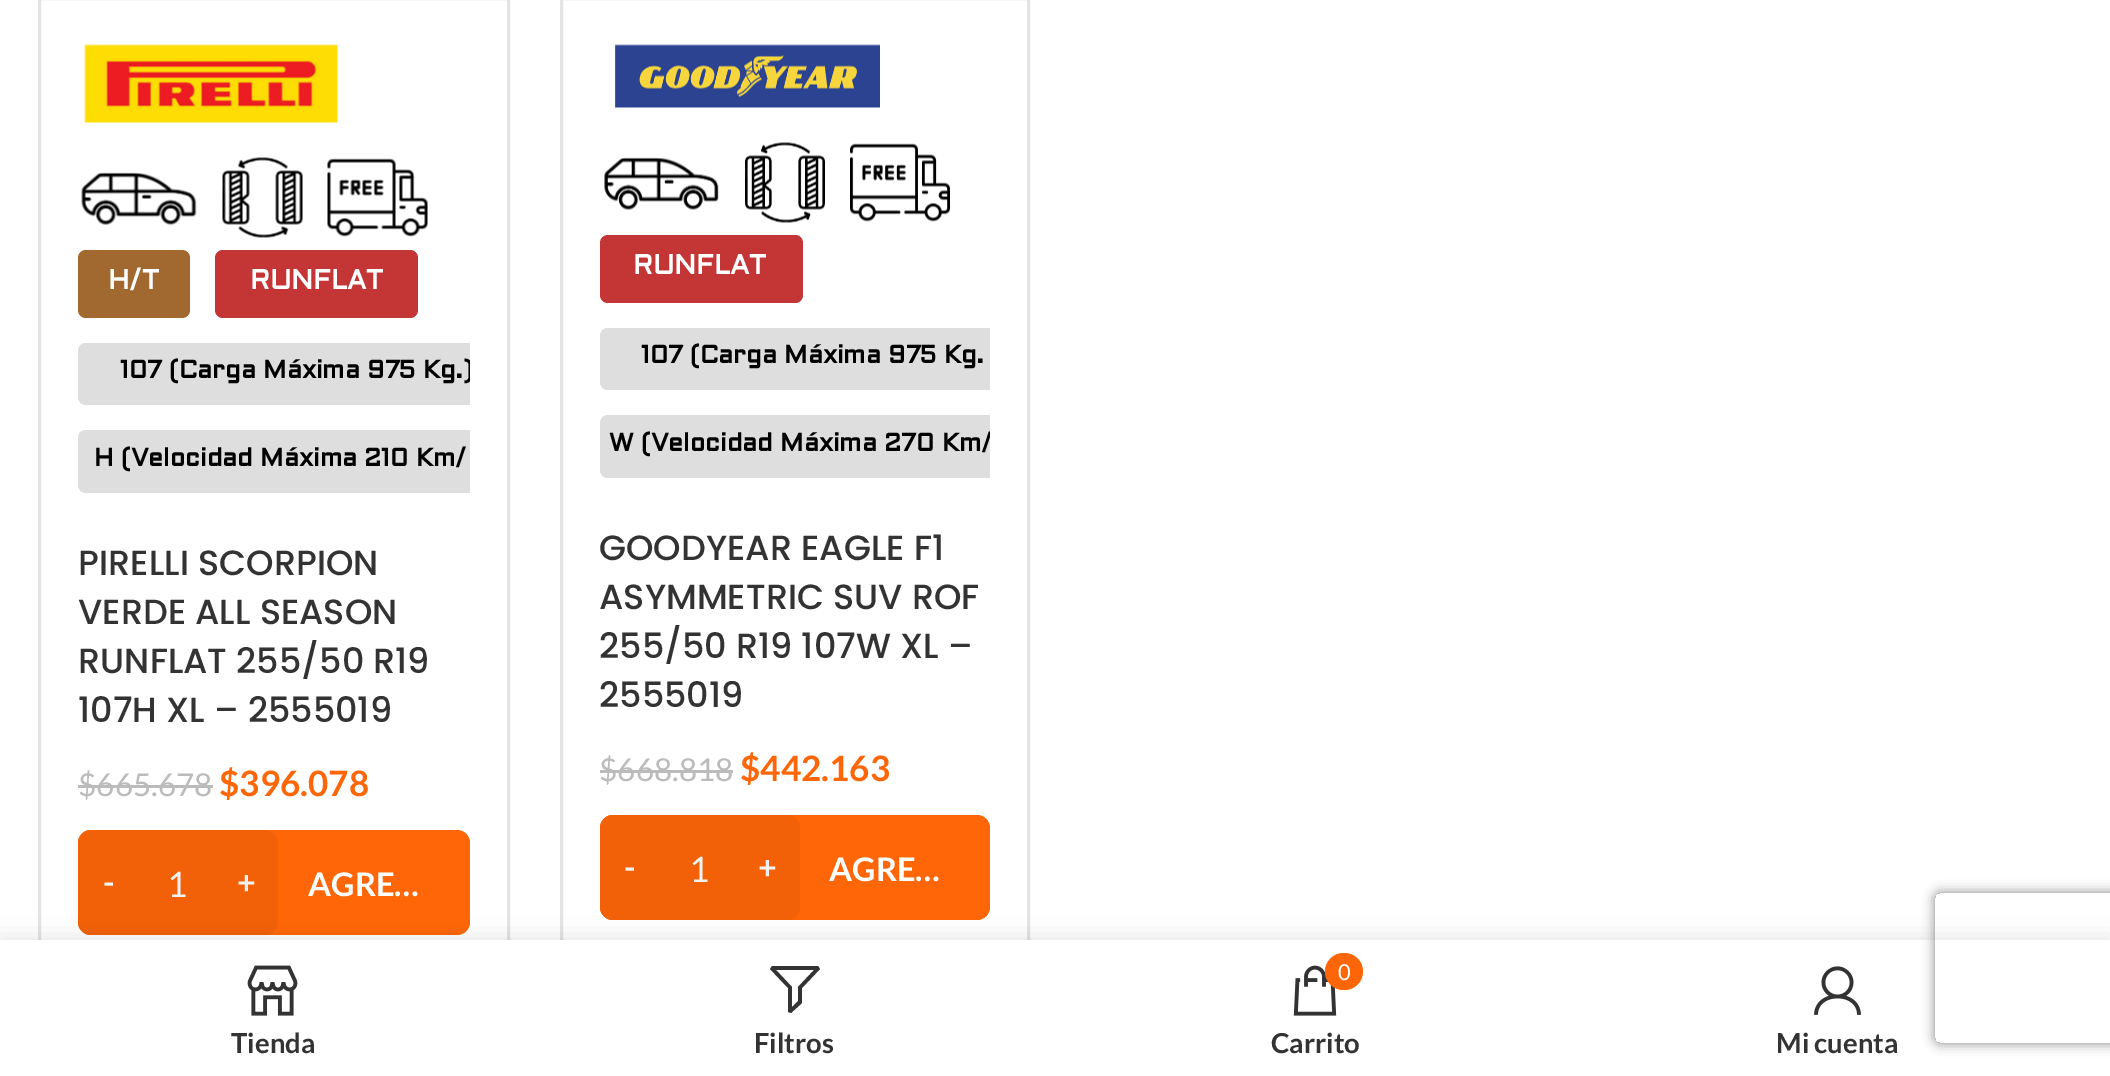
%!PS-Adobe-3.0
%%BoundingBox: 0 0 2110 1076
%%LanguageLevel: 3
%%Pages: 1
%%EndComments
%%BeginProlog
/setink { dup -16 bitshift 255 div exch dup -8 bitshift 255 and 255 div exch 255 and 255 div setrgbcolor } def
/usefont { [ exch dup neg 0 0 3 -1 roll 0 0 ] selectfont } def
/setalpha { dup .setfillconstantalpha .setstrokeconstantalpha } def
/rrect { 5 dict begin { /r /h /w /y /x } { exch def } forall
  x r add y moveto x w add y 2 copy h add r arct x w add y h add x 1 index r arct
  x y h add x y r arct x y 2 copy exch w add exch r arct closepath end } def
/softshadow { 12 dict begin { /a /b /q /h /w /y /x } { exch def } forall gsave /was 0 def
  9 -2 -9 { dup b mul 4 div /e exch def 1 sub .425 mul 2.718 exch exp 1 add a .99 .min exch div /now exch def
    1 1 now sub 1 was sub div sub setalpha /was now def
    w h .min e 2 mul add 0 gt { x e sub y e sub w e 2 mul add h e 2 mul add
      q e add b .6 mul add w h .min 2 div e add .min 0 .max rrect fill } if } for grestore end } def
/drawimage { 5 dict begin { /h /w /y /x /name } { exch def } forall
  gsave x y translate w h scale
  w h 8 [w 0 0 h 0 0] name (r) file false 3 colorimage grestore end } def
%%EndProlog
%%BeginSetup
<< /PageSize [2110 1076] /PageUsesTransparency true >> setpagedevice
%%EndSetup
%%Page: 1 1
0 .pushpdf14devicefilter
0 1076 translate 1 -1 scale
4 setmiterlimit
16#FFFFFF setink
0 0 2110 1076 rectfill
16#E4E4E4 setink
3 setlinewidth
39.5 -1.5 469 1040 rectstroke
(img1.raw) 84 44 254 79 drawimage
(img2.raw) 81 172 116 53 drawimage
(img3.raw) 222 157 81 81 drawimage
(img4.raw) 327 158 101 79 drawimage
16#A16830 setink
78 250 112 68 8 rrect fill
/Aldrich-Bold 27.5 usefont
16#FFFFFF setink
108 289 moveto (H/T) show
16#C43535 setink
215 250 203 68 8 rrect fill
16#FFFFFF setink
250 289 moveto (RUNFLAT) show
16#DEDEDE setink
86 343 moveto 470 343 lineto 470 405 lineto 86 405 lineto 81.5 405 78 401.5 78 397 curveto 78 351 lineto 78 346.5 81.5 343 86 343 curveto closepath fill
gsave
78 -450 392 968 20 rrect clip newpath
/Aldrich-Bold 25 usefont
16#000000 setink
120 378 moveto (107 \(Carga Máxima 975 Kg.\)) show
grestore
86 430 moveto 470 430 lineto 470 493 lineto 86 493 lineto 81.5 493 78 489.5 78 485 curveto 78 438 lineto 78 433.5 81.5 430 86 430 curveto closepath fill
/Aldrich-Bold 25 usefont
16#000000 setink
94 466 moveto (H \(Velocidad Máxima 210 Km/) show
/Poppins-Medium 35 usefont
16#333333 setink
[
    [(PIRELLI SCORPION) 78 575]
    [(VERDE ALL SEASON) 78 624]
    [(RUNFLAT 255/50 R19) 78 673]
    [(107H XL – 2555019) 78 722]
] { aload pop moveto show } forall
/Lato-Regular 31.5 usefont
16#BBBBBB setink
78 796 moveto ($665.678) show
78 785 135 3 rectfill
/Lato-Bold 35 usefont
16#FF6607 setink
219 796 moveto ($396.078) show
78 830 392 105 13 rrect fill
16#F26107 setink
91 830 moveto 140 830 lineto 140 935 lineto 91 935 lineto 84 935 78 929 78 922 curveto 78 843 lineto 78 836 84 830 91 830 curveto closepath fill
/Lato-Bold 32.5 usefont
16#F2F2F2 setink
103 894 moveto (-) show
16#F26107 setink
140 830 75 105 rectfill
/Lato-Regular 35 usefont
16#F2F2F2 setink
167 897 moveto (1) show
16#F26107 setink
215 830 moveto 265 830 lineto 272 830 278 836 278 843 curveto 278 922 lineto 278 929 272 935 265 935 curveto 215 935 lineto closepath fill
/Lato-Bold 32.5 usefont
16#F2F2F2 setink
237 894 moveto (+) show
16#FFFFFF setink
308 896 moveto (AGRE…) show
16#E4E4E4 setink
561.5 -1.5 467 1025 rectstroke
(img5.raw) 615 44 265 64 drawimage
(img6.raw) 604 157 115 53 drawimage
(img7.raw) 745 142 80 81 drawimage
(img8.raw) 850 143 100 79 drawimage
16#C43535 setink
600 235 203 68 8 rrect fill
/Aldrich-Bold 27.5 usefont
16#FFFFFF setink
633 274 moveto (RUNFLAT) show
16#DEDEDE setink
608 328 moveto 990 328 lineto 990 390 lineto 608 390 lineto 603.5 390 600 386.5 600 382 curveto 600 336 lineto 600 331.5 603.5 328 608 328 curveto closepath fill
/Aldrich-Bold 25 usefont
16#000000 setink
641 363 moveto (107 \(Carga Máxima 975 Kg.) show
16#DEDEDE setink
608 415 moveto 990 415 lineto 990 478 lineto 608 478 lineto 603.5 478 600 474.5 600 470 curveto 600 423 lineto 600 418.5 603.5 415 608 415 curveto closepath fill
gsave
600 -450 390 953 20 rrect clip newpath
16#000000 setink
609 451 moveto (W \(Velocidad Máxima 270 Km/) show
grestore
/Poppins-Medium 35 usefont
16#333333 setink
[
    [(GOODYEAR EAGLE F1) 599 560]
    [(ASYMMETRIC SUV ROF) 599 609]
    [(255/50 R19 107W XL –) 599 658]
    [(2555019) 599 707]
] { aload pop moveto show } forall
/Lato-Regular 31.5 usefont
16#BBBBBB setink
599 781 moveto ($668.818) show
600 770 133 3 rectfill
/Lato-Bold 35 usefont
16#FF6607 setink
740 781 moveto ($442.163) show
600 815 390 105 13 rrect fill
16#F26107 setink
613 815 moveto 663 815 lineto 663 920 lineto 613 920 lineto 606 920 600 914 600 907 curveto 600 828 lineto 600 821 606 815 613 815 curveto closepath fill
/Lato-Bold 32.5 usefont
16#F2F2F2 setink
624 879 moveto (-) show
16#F26107 setink
663 815 75 105 rectfill
/Lato-Regular 35 usefont
16#F2F2F2 setink
689 882 moveto (1) show
16#F26107 setink
738 815 moveto 787 815 lineto 794 815 800 821 800 828 curveto 800 907 lineto 800 914 794 920 787 920 curveto 738 920 lineto closepath fill
/Lato-Bold 32.5 usefont
16#F2F2F2 setink
758 879 moveto (+) show
16#FFFFFF setink
829 881 moveto (AGRE…) show
16#000000 setink
0 940 2110 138 0 11 0.12 softshadow
16#FFFFFF setink
0 940 2110 136 rectfill
(img9.raw) 247 965 51 51 drawimage
/Lato-Bold 27.5 usefont
16#333333 setink
231 1053 moveto (Tienda) show
772 966 moveto 770 969 lineto 788 988 lineto 788 1012 lineto 791 1013 lineto 802 1003 lineto 802 988 lineto 820 969 lineto 818 966 lineto closepath 776 970 moveto 814 970 lineto 798 987 lineto 798 1001 lineto 792 1007 lineto 792 987 lineto closepath fill
754 1053 moveto (Filtros) show
(img10.raw) 1293 965 44 51 drawimage
16#FF6607 setink
1325 953 38 37 18.5 rrect fill
/Lato-Regular 22 usefont
16#FFFFFF setink
1338 980 moveto (0) show
/Lato-Bold 27.5 usefont
16#333333 setink
1271 1053 moveto (Carrito) show
(img11.raw) 1814 966 47 49 drawimage
1776 1053 moveto (Mi cuenta) show
gsave
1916 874 moveto 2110 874 lineto 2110 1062 lineto 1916 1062 lineto closepath 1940 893 moveto 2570 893 lineto 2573 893 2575 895 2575 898 curveto 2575 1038 lineto 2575 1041 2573 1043 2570 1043 curveto 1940 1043 lineto 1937 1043 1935 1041 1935 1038 curveto 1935 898 lineto 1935 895 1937 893 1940 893 curveto closepath eoclip newpath
16#808080 setink
1935 893 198 150 5 6 1 softshadow
grestore
.poppdf14devicefilter showpage
%%EOF
